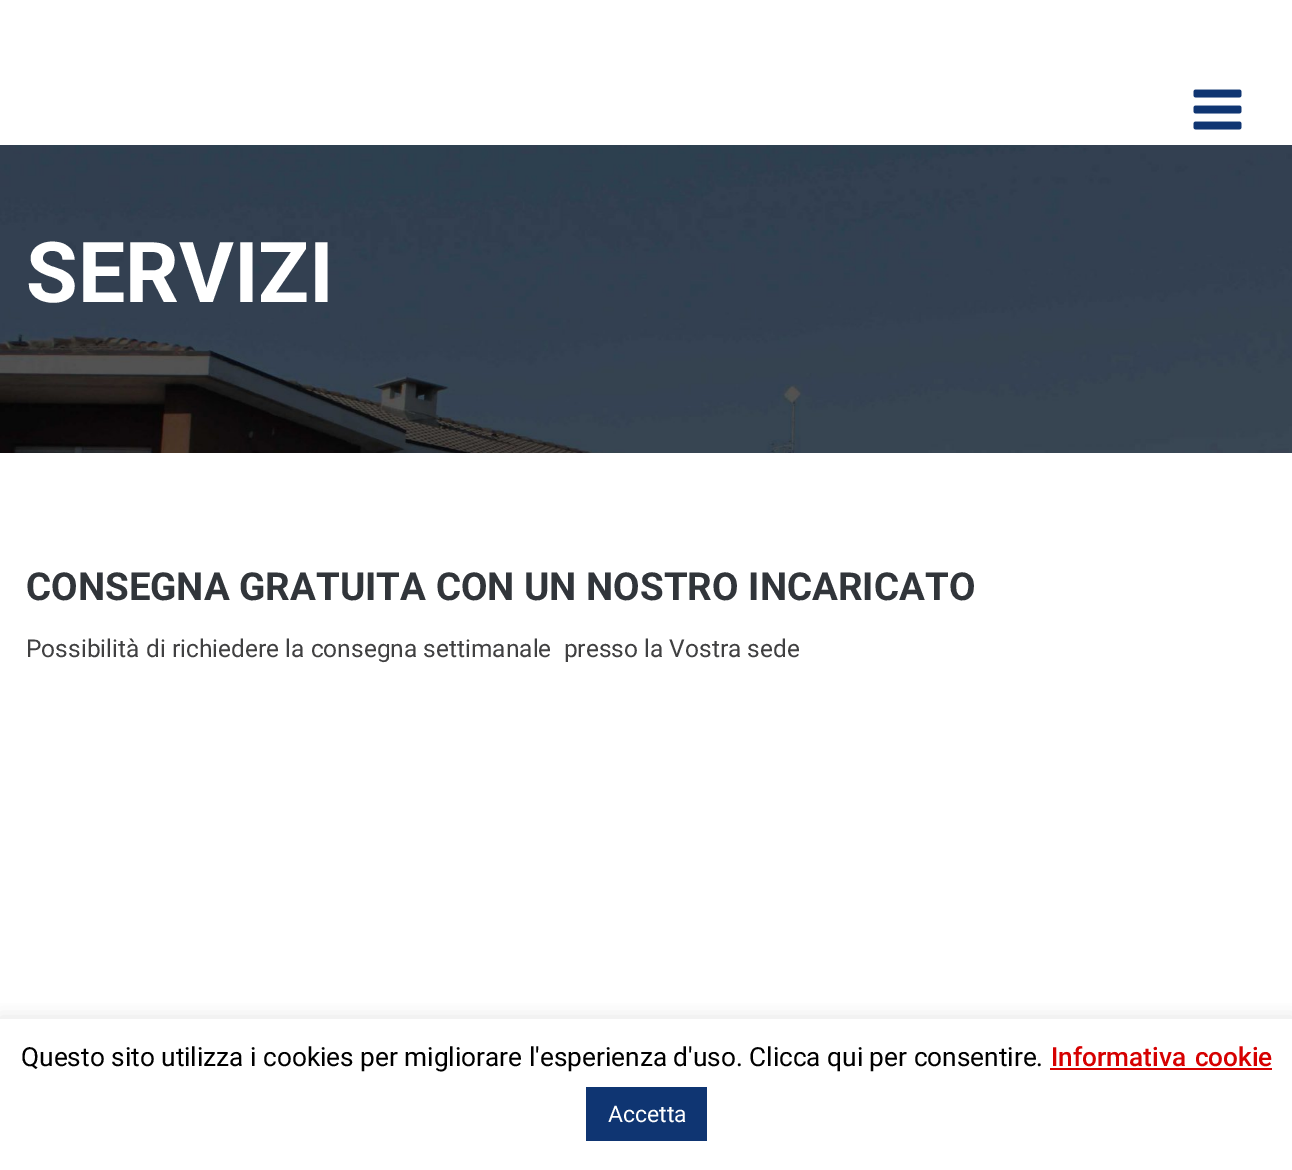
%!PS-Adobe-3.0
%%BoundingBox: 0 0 1292 1170
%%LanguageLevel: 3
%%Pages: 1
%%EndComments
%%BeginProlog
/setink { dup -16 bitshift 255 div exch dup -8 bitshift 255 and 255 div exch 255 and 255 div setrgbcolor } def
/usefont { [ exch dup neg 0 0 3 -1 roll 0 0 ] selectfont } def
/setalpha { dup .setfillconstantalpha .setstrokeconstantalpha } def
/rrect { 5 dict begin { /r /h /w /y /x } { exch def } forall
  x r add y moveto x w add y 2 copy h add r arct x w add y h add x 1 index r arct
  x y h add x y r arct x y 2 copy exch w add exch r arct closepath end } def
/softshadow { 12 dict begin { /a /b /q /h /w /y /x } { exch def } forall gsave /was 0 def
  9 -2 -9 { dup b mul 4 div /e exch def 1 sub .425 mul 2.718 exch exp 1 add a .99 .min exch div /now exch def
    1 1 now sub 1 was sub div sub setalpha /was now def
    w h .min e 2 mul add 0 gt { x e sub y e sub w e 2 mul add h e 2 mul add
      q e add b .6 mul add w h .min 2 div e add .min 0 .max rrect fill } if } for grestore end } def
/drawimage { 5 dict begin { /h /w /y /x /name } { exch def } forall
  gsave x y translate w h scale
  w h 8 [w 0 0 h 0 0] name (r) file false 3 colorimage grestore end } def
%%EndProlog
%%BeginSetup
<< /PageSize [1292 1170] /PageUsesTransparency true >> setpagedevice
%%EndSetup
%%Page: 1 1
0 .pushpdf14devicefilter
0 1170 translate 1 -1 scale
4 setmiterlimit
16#FFFFFF setink
0 0 1292 1170 rectfill
(img1.raw) 1193 89 49 41 drawimage
(img2.raw) 0 145 1292 308 drawimage
/Roboto-Bold 84 usefont
26 302 moveto (SERVIZI) show
/Roboto-Bold 38.5 usefont
16#31353A setink
26 600 moveto (CONSEGNA GRATUITA CON UN NOSTRO INCARICATO) show
/Roboto-Regular 24.5 usefont
16#404041 setink
26 657 moveto (Possibilità di richiedere la consegna settimanale  presso la Vostra sede) show
gsave
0 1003 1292 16 rectclip
16#ACABAB setink
0 1017 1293 152 0 9 0.3 softshadow
grestore
/Roboto-Regular 26.25 usefont
16#000000 setink
21 1066 moveto (Questo sito utilizza i cookies per migliorare l'esperienza d'uso. Clicca qui per consentire.) show
/Roboto-Medium 26.25 usefont
16#D60000 setink
1051 1066 moveto 2 0 32 (Informativa cookie) widthshow
1050 1068 222 2 rectfill
16#0F3572 setink
586 1087 121 54 rectfill
/Roboto-Regular 23 usefont
16#FFFFFF setink
608 1122 moveto (Accetta) show
.poppdf14devicefilter showpage
%%EOF
